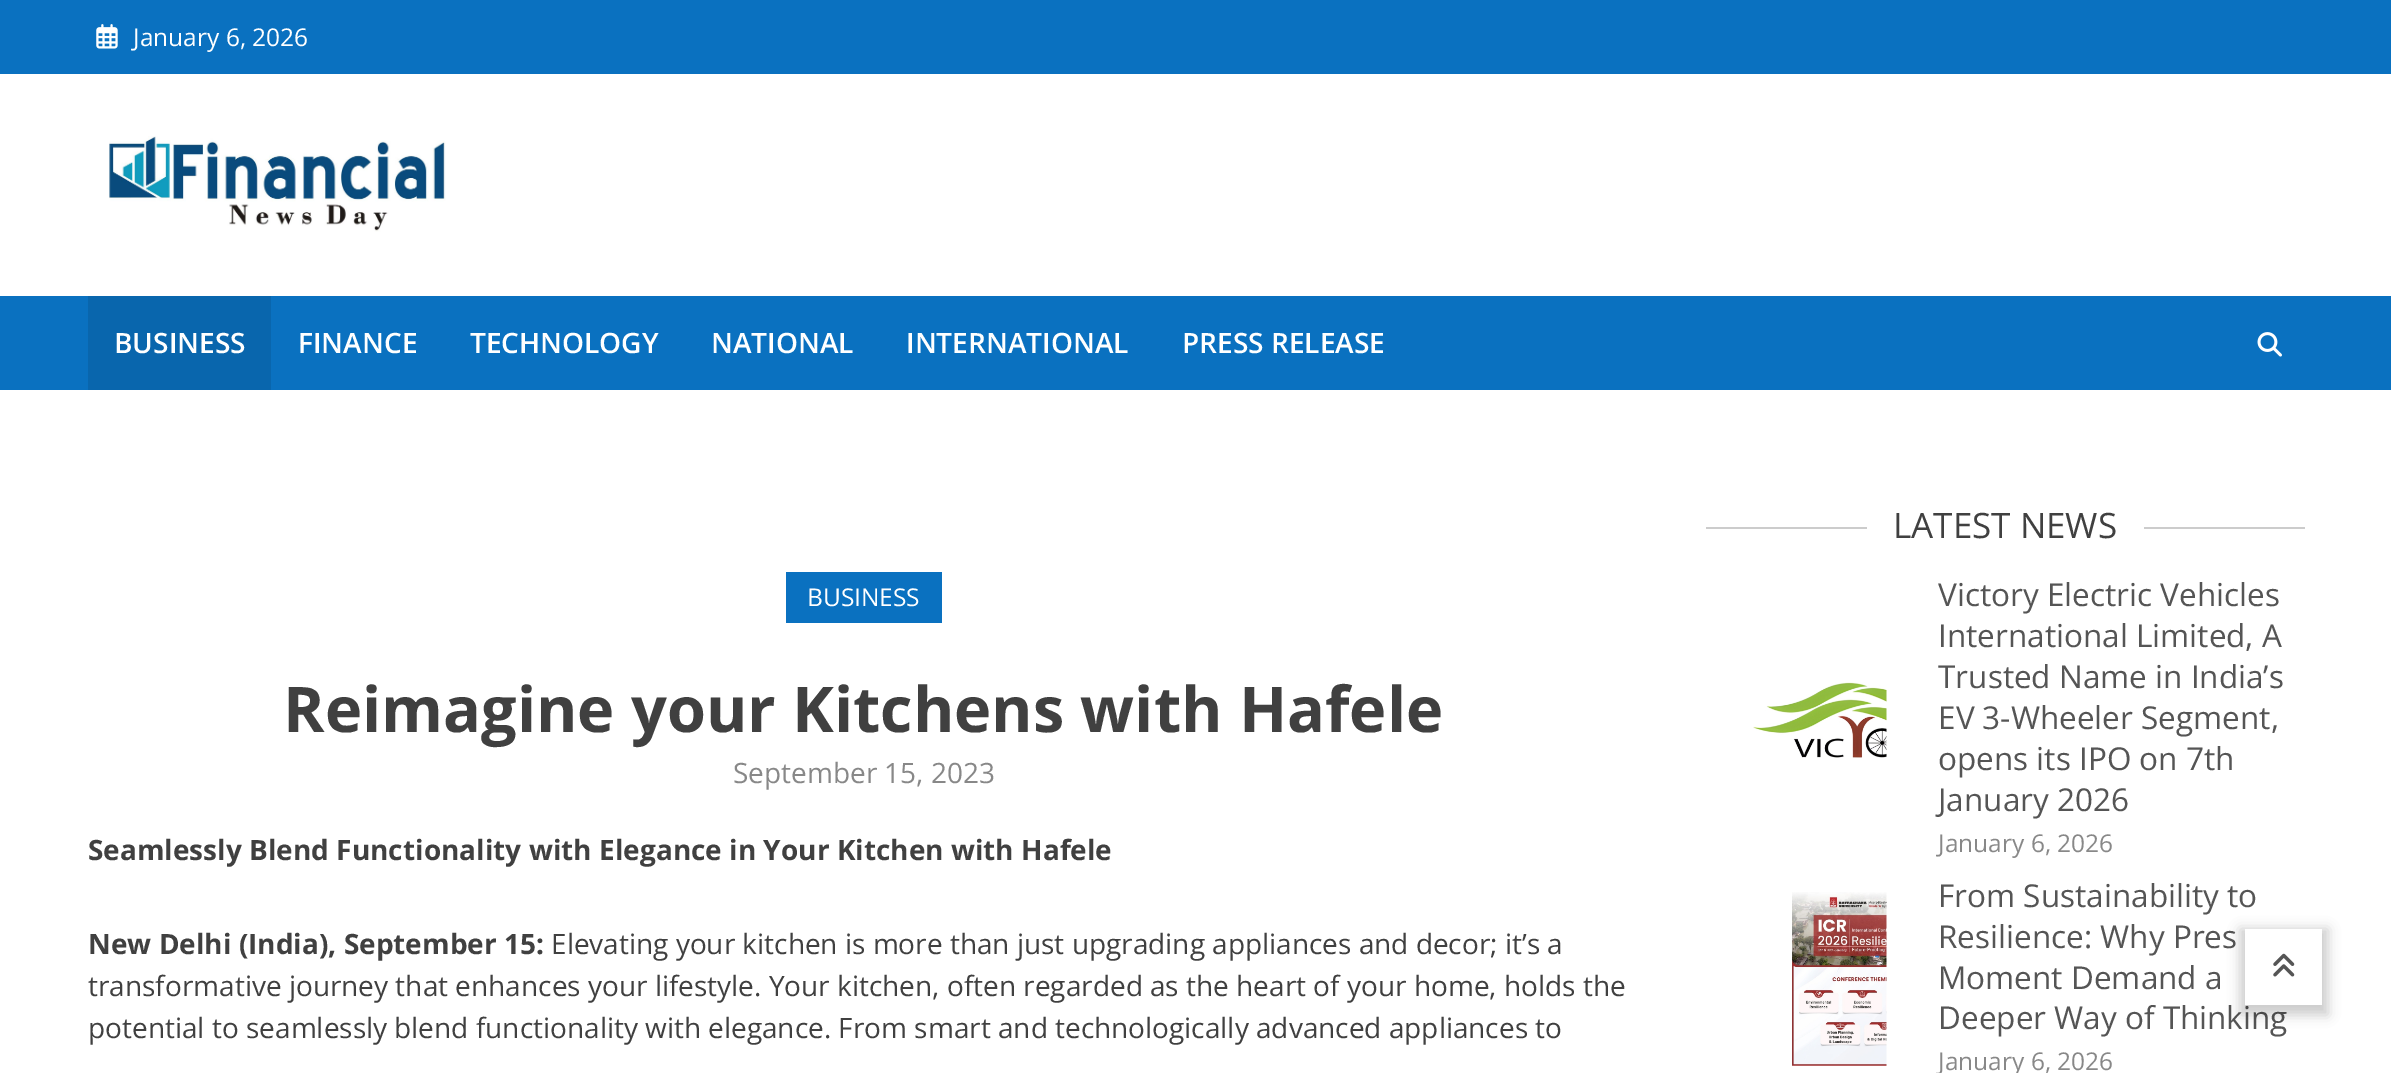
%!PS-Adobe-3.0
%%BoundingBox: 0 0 2391 1073
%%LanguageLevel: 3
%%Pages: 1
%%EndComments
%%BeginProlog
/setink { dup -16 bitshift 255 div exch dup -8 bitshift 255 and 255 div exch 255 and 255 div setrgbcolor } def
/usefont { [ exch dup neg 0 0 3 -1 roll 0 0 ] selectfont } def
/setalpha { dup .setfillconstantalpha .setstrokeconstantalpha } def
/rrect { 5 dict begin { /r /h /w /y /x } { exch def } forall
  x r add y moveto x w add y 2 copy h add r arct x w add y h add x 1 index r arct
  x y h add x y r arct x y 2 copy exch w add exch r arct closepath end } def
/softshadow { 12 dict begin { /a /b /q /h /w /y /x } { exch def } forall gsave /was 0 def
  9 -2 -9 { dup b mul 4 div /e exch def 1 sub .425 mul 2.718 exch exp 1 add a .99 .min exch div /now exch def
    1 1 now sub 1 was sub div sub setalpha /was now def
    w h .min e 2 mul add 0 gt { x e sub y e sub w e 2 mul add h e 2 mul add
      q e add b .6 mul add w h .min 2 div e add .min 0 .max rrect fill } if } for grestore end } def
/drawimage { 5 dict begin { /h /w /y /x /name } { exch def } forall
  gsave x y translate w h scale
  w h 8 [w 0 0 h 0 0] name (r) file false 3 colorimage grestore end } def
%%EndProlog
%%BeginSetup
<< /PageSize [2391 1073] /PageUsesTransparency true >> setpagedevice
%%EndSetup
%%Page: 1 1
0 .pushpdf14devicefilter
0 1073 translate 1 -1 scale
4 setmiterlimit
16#FFFFFF setink
0 0 2391 1073 rectfill
16#0A71C0 setink
0 0 2391 74 rectfill
(img1.raw) 96 24 22 25 drawimage
/OpenSans-Regular 24.5 usefont
16#FFFFFF setink
133 46 moveto (January 6, 2026) show
(img2.raw) 109 136 337 96 drawimage
16#0A71C0 setink
0 296 2391 94 rectfill
16#0966AD setink
88 296 183 94 rectfill
/OpenSans-SemiBold 28 usefont
16#FFFFFF setink
[
    [(BUSINESS) 114 353]
    [(FINANCE) 298 353]
    [(TECHNOLOGY) 470 353]
    [(NATIONAL) 711 353]
    [(INTERNATIONAL) 906 353]
    [(PRESS RELEASE) 1182 353]
] { aload pop moveto show } forall
(img3.raw) 2257 332 25 25 drawimage
16#0A71C0 setink
786 572 156 51 rectfill
/OpenSans-Regular 24.5 usefont
16#FFFFFF setink
807 606 moveto (BUSINESS) show
/OpenSans-Bold 63 usefont
16#404040 setink
283 732 moveto (Reimagine your Kitchens with Hafele) show
/OpenSans-Regular 28 usefont
16#888888 setink
733 783 moveto (September 15, 2023) show
/OpenSans-Bold 28 usefont
16#404040 setink
88 860 moveto (Seamlessly Blend Functionality with Elegance in Your Kitchen with Hafele) show
88 954 moveto (New Delhi \(India\), September 15:) show
/OpenSans-Regular 28 usefont
[
    [(Elevating your kitchen is more than just upgrading appliances and decor; it’s a) 551 954]
    [(transformative journey that enhances your lifestyle. Your kitchen, often regarded as the heart of your home, holds the) 88 996]
    [(potential to seamlessly blend functionality with elegance. From smart and technologically advanced appliances to) 88 1038]
] { aload pop moveto show } forall
16#CCCCCC setink
1706 527 161 2 rectfill
/OpenSans-Regular 35 usefont
16#404040 setink
1893 538 moveto (LATEST NEWS) show
16#CCCCCC setink
2144 527 161 2 rectfill
(img4.raw) 1753 682 134 76 drawimage
/OpenSans-Regular 31.5 usefont
16#555555 setink
[
    [(Victory Electric Vehicles) 1938 606]
    [(International Limited, A) 1938 647]
    [(Trusted Name in India’s) 1938 688]
    [(EV 3-Wheeler Segment,) 1938 729]
    [(opens its IPO on 7th) 1938 770]
    [(January 2026) 1938 811]
] { aload pop moveto show } forall
/OpenSans-Regular 24.5 usefont
16#888888 setink
1938 852 moveto (January 6, 2026) show
(img5.raw) 1792 892 95 174 drawimage
/OpenSans-Regular 31.5 usefont
16#555555 setink
[
    [(From Sustainability to) 1938 907]
    [(Resilience: Why Pres) 1938 948]
    [(Moment Demand a) 1938 989]
    [(Deeper Way of Thinking) 1938 1029]
] { aload pop moveto show } forall
/OpenSans-Regular 24.5 usefont
16#888888 setink
1938 1070 moveto (January 6, 2026) show
16#000000 setink
2240 929 88 86 0 6 0.2 softshadow
16#FFFFFF setink
2245 929 77 76 rectfill
(img6.raw) 2273 953 22 24 drawimage
.poppdf14devicefilter showpage
%%EOF
